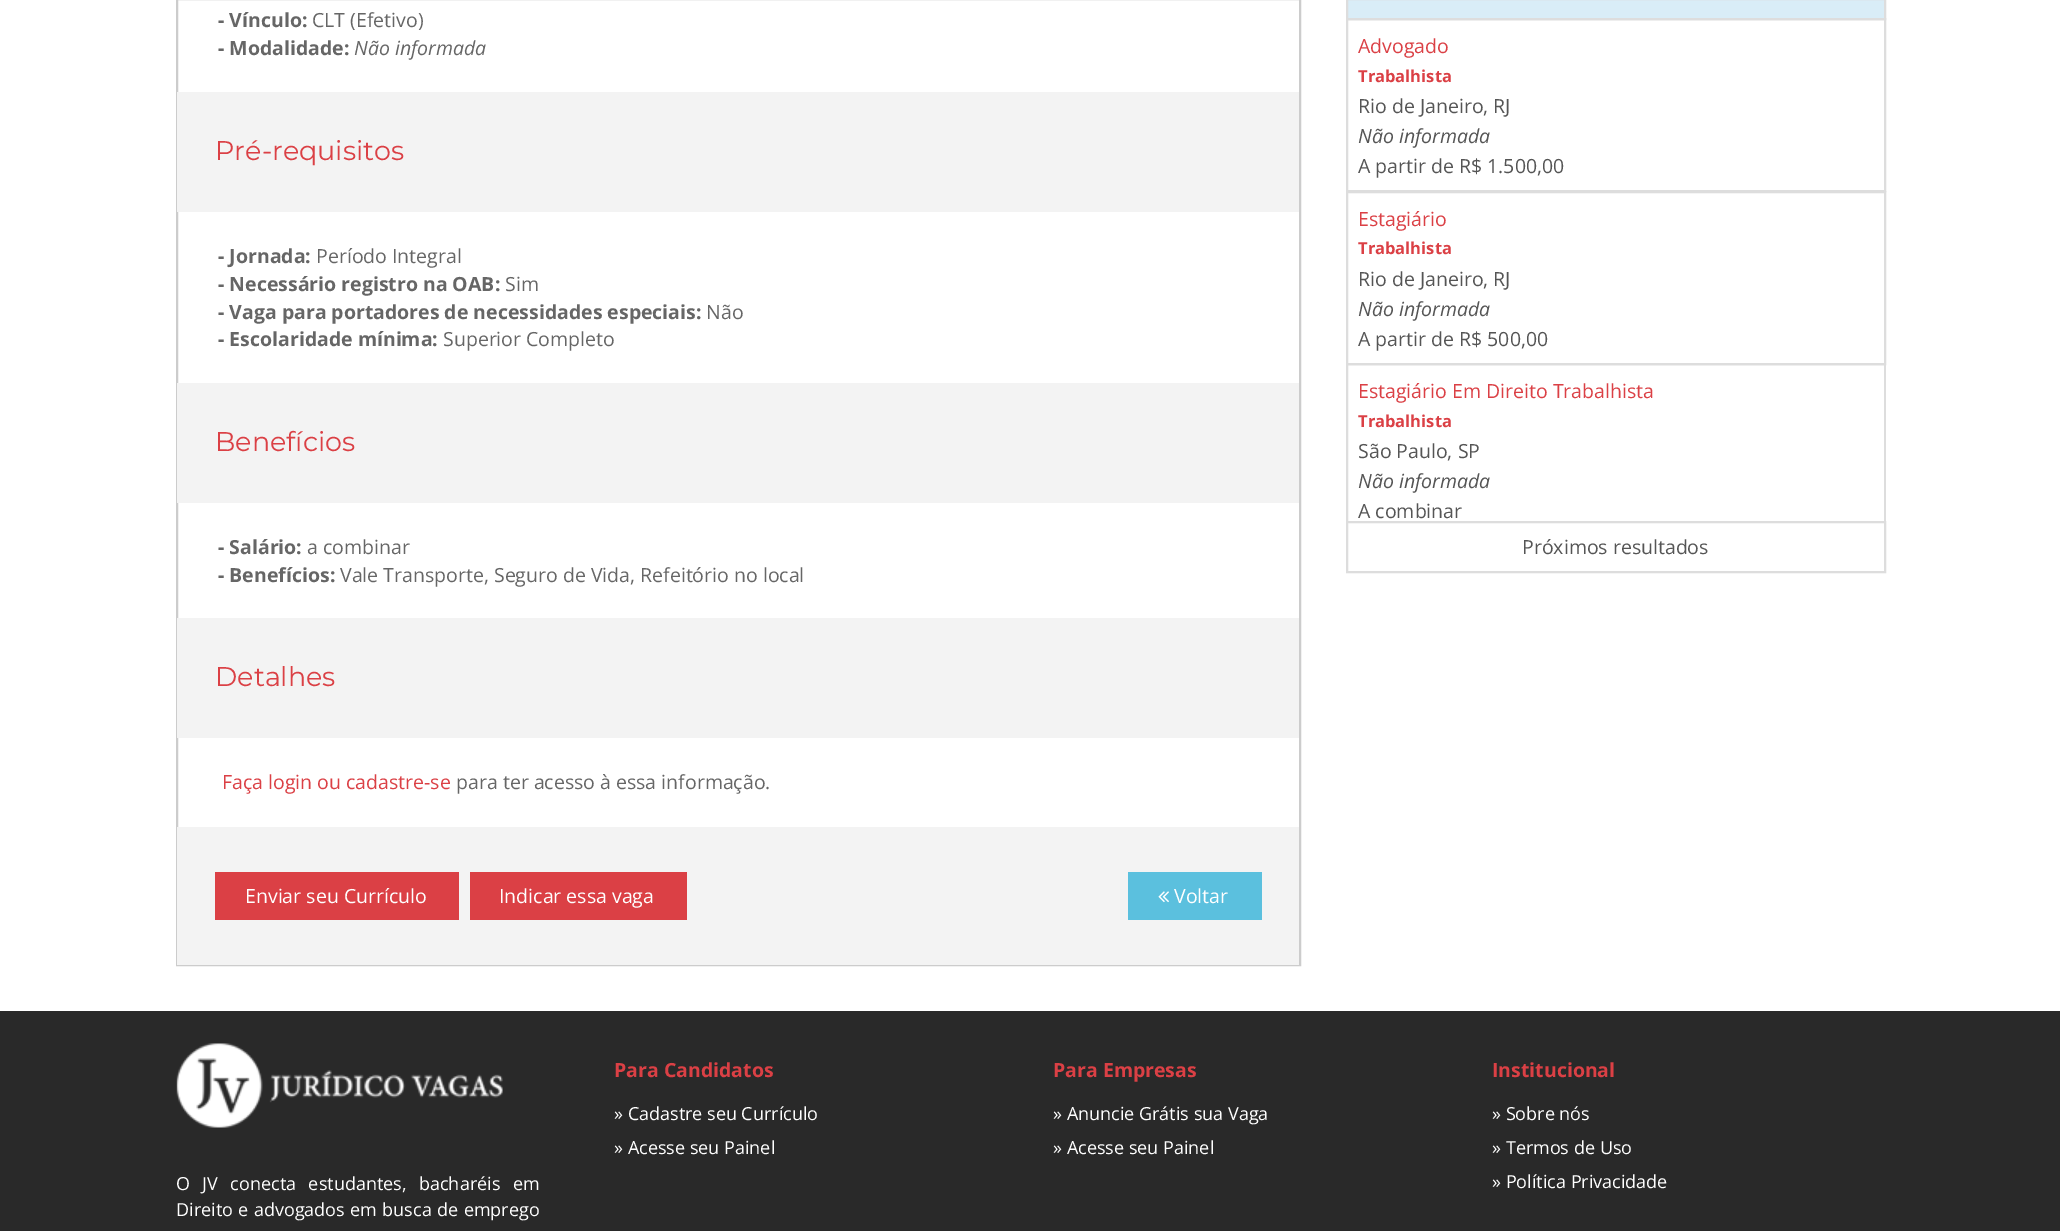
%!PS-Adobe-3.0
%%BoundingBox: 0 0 2060 1231
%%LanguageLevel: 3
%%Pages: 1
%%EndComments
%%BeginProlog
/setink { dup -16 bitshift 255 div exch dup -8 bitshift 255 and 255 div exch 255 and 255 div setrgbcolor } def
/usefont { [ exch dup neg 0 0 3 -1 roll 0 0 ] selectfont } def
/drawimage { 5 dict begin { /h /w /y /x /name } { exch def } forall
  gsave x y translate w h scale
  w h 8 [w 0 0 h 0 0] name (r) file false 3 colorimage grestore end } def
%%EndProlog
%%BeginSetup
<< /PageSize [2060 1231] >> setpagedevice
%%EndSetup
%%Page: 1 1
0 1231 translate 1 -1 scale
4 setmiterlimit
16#FFFFFF setink
0 0 2060 1231 rectfill
16#CCCCCC setink
2 setlinewidth
177 -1 1123 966 rectstroke
/OpenSans-Bold 19.5 usefont
16#666666 setink
218 27 moveto (- Vínculo:) show
/OpenSans-Regular 19.5 usefont
312 27 moveto (CLT \(Efetivo\)) show
/OpenSans-Bold 19.5 usefont
218 55 moveto (- Modalidade:) show
/OpenSans-Italic 19.5 usefont
354 55 moveto (Não informada) show
16#F3F3F3 setink
177 92 1122 120 rectfill
/Montserrat-Regular 27 usefont
16#DB4045 setink
215 160 moveto (Pré-requisitos) show
/OpenSans-Bold 19.5 usefont
16#666666 setink
218 263 moveto (- Jornada:) show
/OpenSans-Regular 19.5 usefont
316 263 moveto (Período Integral) show
/OpenSans-Bold 19.5 usefont
218 291 moveto (- Necessário registro na OAB:) show
/OpenSans-Regular 19.5 usefont
505 291 moveto (Sim) show
/OpenSans-Bold 19.5 usefont
218 319 moveto (- Vaga para portadores de necessidades especiais:) show
/OpenSans-Regular 19.5 usefont
706 319 moveto (Não) show
/OpenSans-Bold 19.5 usefont
218 346 moveto (- Escolaridade mínima:) show
/OpenSans-Regular 19.5 usefont
443 346 moveto (Superior Completo) show
16#F3F3F3 setink
177 383 1122 120 rectfill
/Montserrat-Regular 27 usefont
16#DB4045 setink
215 451 moveto (Benefícios) show
/OpenSans-Bold 19.5 usefont
16#666666 setink
218 554 moveto (- Salário:) show
/OpenSans-Regular 19.5 usefont
307 554 moveto (a combinar) show
/OpenSans-Bold 19.5 usefont
218 582 moveto (- Benefícios:) show
/OpenSans-Regular 19.5 usefont
340 582 moveto (Vale Transporte, Seguro de Vida, Refeitório no local) show
16#F3F3F3 setink
177 618 1122 120 rectfill
/Montserrat-Regular 27 usefont
16#DB4045 setink
215 686 moveto (Detalhes) show
/OpenSans-Regular 19.5 usefont
222 789 moveto (Faça login ou cadastre-se) show
16#666666 setink
456 789 moveto (para ter acesso à essa informação.) show
16#F3F3F3 setink
177 827 1122 138 rectfill
16#DB4045 setink
215 872 244 48 rectfill
16#FFFFFF setink
245 903 moveto (Enviar seu Currículo) show
16#DB4045 setink
470 872 217 48 rectfill
16#FFFFFF setink
499 903 moveto (Indicar essa vaga) show
16#5BC0DE setink
1128 872 134 48 rectfill
(img1.raw) 1158 891 11 12 drawimage
16#FFFFFF setink
1174 903 moveto (Voltar) show
16#D9EDF7 setink
1347 -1 moveto 1885 -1 lineto 1885 19 lineto 1347 19 lineto closepath gsave fill grestore
16#DDDDDD setink
stroke
1347 19 538 172 rectstroke
16#DB4045 setink
1358 53 moveto (Advogado) show
/OpenSans-Bold 16.5 usefont
1358 82 moveto (Trabalhista) show
/OpenSans-Regular 19.5 usefont
16#555555 setink
1358 113 moveto (Rio de Janeiro, RJ) show
/OpenSans-Italic 19.5 usefont
1358 143 moveto (Não informada) show
/OpenSans-Regular 19.5 usefont
1358 173 moveto (A partir de R$ 1.500,00) show
16#DDDDDD setink
1347 192 538 172 rectstroke
16#DB4045 setink
1358 226 moveto (Estagiário) show
/OpenSans-Bold 16.5 usefont
1358 254 moveto (Trabalhista) show
/OpenSans-Regular 19.5 usefont
16#555555 setink
1358 286 moveto (Rio de Janeiro, RJ) show
/OpenSans-Italic 19.5 usefont
1358 316 moveto (Não informada) show
/OpenSans-Regular 19.5 usefont
1358 346 moveto (A partir de R$ 500,00) show
gsave
1346 0 540 521 rectclip
16#DDDDDD setink
1347 364 538 172 rectstroke
grestore
16#DB4045 setink
1358 398 moveto (Estagiário Em Direito Trabalhista) show
/OpenSans-Bold 16.5 usefont
1358 427 moveto (Trabalhista) show
/OpenSans-Regular 19.5 usefont
16#555555 setink
1358 458 moveto (São Paulo, SP) show
/OpenSans-Italic 19.5 usefont
1358 488 moveto (Não informada) show
/OpenSans-Regular 19.5 usefont
1358 518 moveto (A combinar) show
16#DDDDDD setink
1347 522 538 50 rectstroke
16#555555 setink
1522 554 moveto (Próximos resultados) show
16#292929 setink
0 1011 2060 220 rectfill
/OpenSans-Bold 19.5 usefont
16#DB4045 setink
614 1077 moveto (Para Candidatos) show
/OpenSans-Regular 18 usefont
16#FFFFFF setink
614 1120 moveto (» Cadastre seu Currículo) show
614 1154 moveto (» Acesse seu Painel) show
/OpenSans-Bold 19.5 usefont
16#DB4045 setink
1053 1077 moveto (Para Empresas) show
/OpenSans-Regular 18 usefont
16#FFFFFF setink
1053 1120 moveto (» Anuncie Grátis sua Vaga) show
1053 1154 moveto (» Acesse seu Painel) show
/OpenSans-Bold 19.5 usefont
16#DB4045 setink
1492 1077 moveto (Institucional) show
/OpenSans-Regular 18 usefont
16#FFFFFF setink
[
    [(» Sobre nós) 1492 1120]
    [(» Termos de Uso) 1492 1154]
    [(» Política Privacidade) 1492 1188]
] { aload pop moveto show } forall
(img2.raw) 176 1043 327 85 drawimage
176 1190 moveto 7.75 0 32 (O JV conecta estudantes, bacharéis em) widthshow
176 1216 moveto 0.75 0 32 (Direito e advogados em busca de emprego) widthshow
showpage
%%EOF
